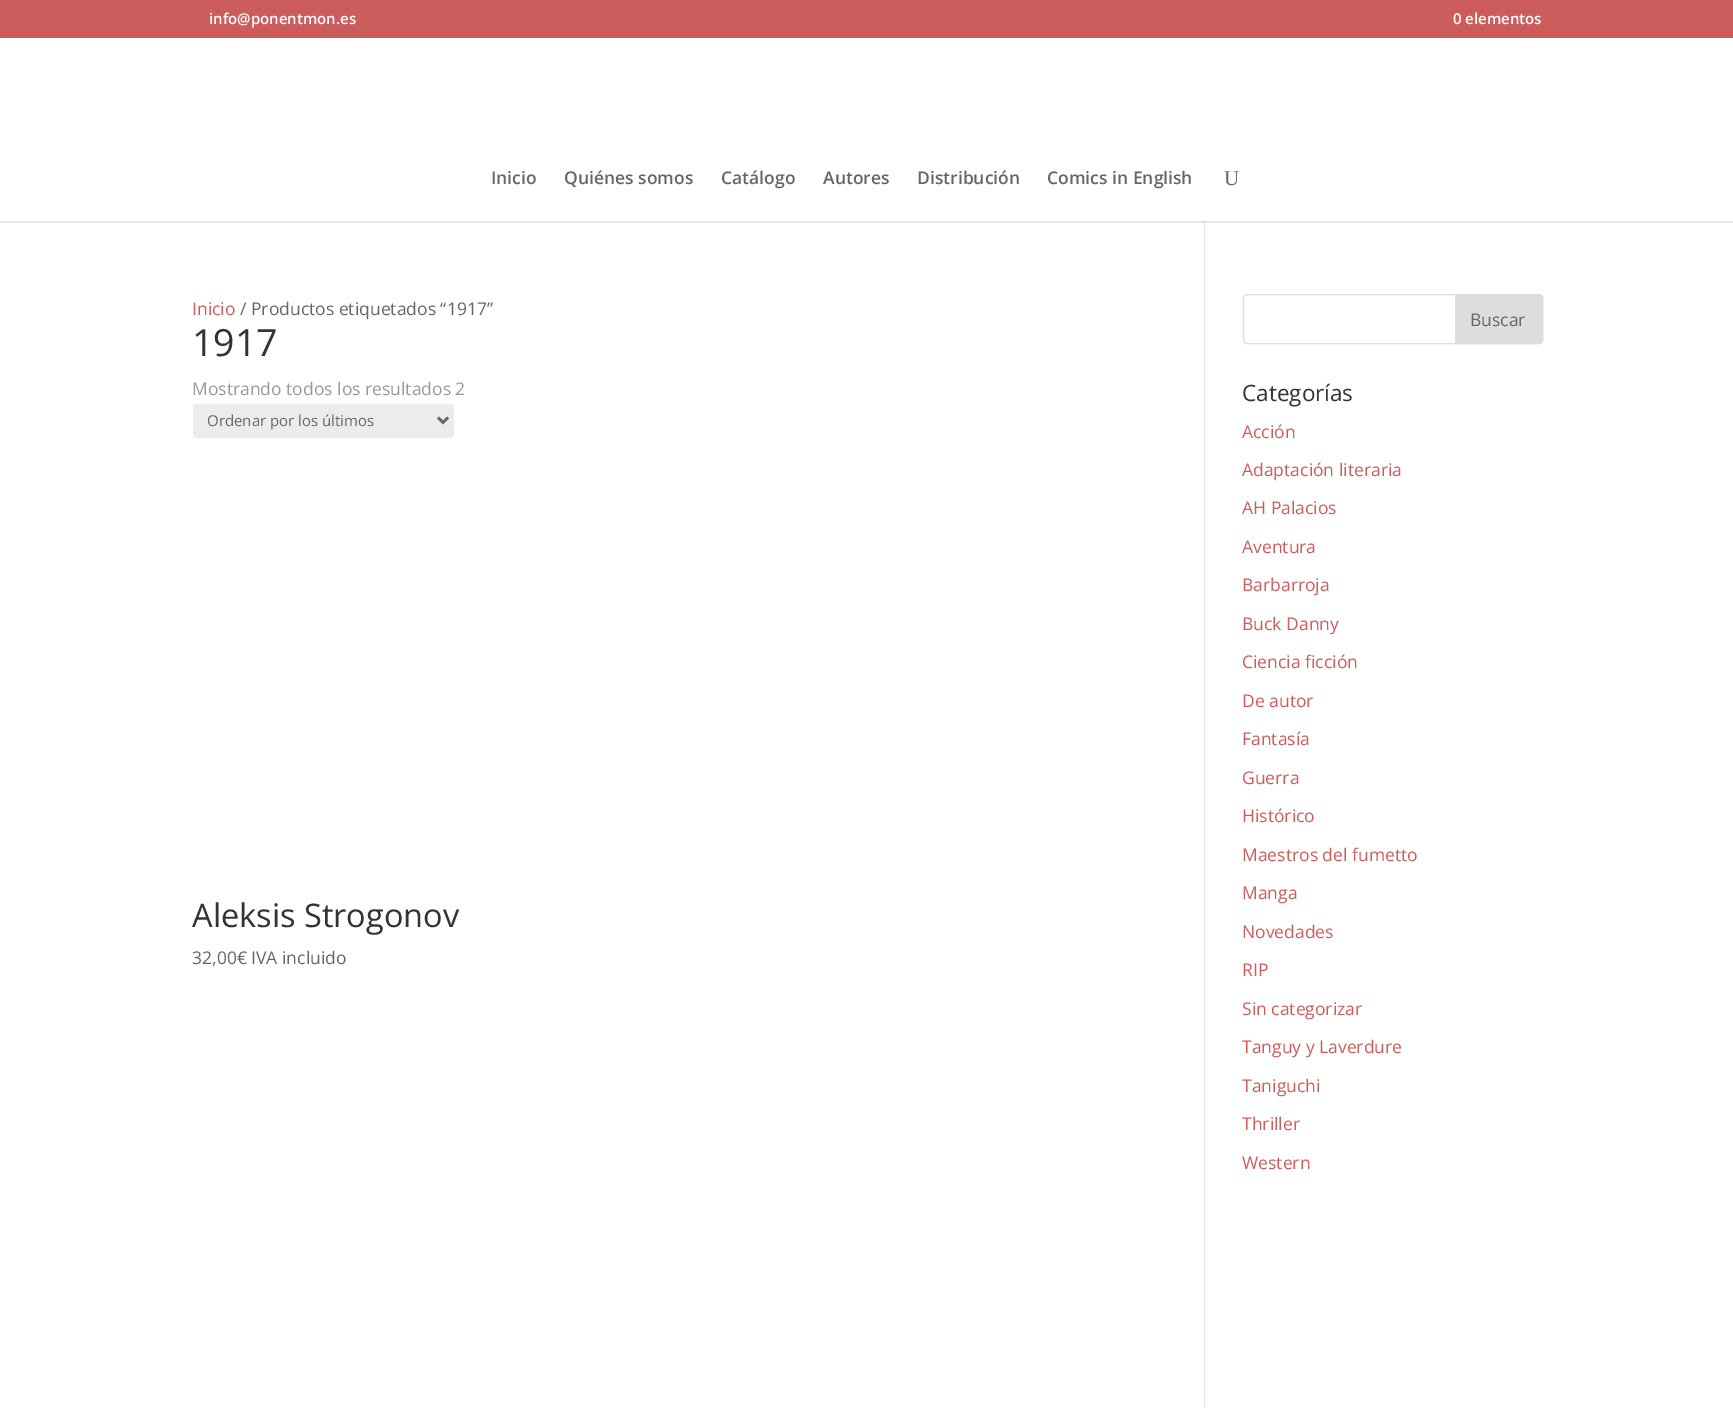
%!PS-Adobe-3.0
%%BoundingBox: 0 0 1733 1408
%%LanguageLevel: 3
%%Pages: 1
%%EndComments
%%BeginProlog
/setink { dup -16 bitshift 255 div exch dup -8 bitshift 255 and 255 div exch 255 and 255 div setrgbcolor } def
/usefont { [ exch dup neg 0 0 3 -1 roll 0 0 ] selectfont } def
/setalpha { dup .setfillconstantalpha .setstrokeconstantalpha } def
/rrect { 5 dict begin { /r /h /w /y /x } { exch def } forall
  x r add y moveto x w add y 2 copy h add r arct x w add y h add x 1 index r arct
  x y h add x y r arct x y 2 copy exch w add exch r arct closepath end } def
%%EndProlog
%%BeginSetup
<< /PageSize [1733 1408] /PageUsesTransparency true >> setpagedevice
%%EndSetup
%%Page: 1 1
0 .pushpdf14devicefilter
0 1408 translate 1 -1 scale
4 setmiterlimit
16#FFFFFF setink
0 0 1733 1408 rectfill
16#CD5C5C setink
0 0 1733 38 rectfill
/OpenSans-SemiBold 15 usefont
16#FFFFFF setink
209 24 moveto (info@ponentmon.es) show
1453 24 moveto (0 elementos) show
16#E2E2E2 setink
1204 221 1 1187 rectfill
0.1 setalpha
16#000000 setink
0 221 moveto 0 223 lineto 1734 223 lineto 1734 39 lineto 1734 221 lineto closepath fill
/OpenSans-SemiBold 17.5 usefont
1 setalpha
16#666666 setink
[
    [(Inicio) 491 184]
    [(Quiénes somos) 564 184]
    [(Catálogo) 721 184]
    [(Autores) 823 184]
    [(Distribución) 917 184]
    [(Comics in English) 1047 184]
] { aload pop moveto show } forall
/LiberationSerif-Regular 21 usefont
1224 185 moveto (U) show
/OpenSans-Regular 17.5 usefont
16#CD5C5C setink
192 315 moveto (Inicio) show
16#666666 setink
240 315 moveto (/ Productos etiquetados “1917”) show
/OpenSans-Regular 37.5 usefont
16#333333 setink
192 356 moveto (1917) show
/OpenSans-Regular 17.5 usefont
16#999999 setink
192 395 moveto (Mostrando todos los resultados 2) show
16#ECECEC setink
193 404 261 34 4 rrect fill
16#666666 setink
2.5 setlinewidth
438 417.5 moveto 443 422.5 lineto 448 417.5 lineto stroke
gsave
208 409 216 24 rectclip
/OpenSans-Regular 15 usefont
207 426 moveto (Ordenar por los últimos) show
grestore
/OpenSans-Regular 32.5 usefont
16#333333 setink
192 927 moveto (Aleksis Strogonov) show
/OpenSans-Regular 17.5 usefont
16#666666 setink
192 964 moveto (32,00€ IVA incluido) show
16#DDDDDD setink
1 setlinewidth
1243.5 294.5 299 49 3.5 rrect stroke
1455.5 294.5 moveto 1539 294.5 lineto 1541 294.5 1542.5 296 1542.5 298 curveto 1542.5 340 lineto 1542.5 342 1541 343.5 1539 343.5 curveto 1455.5 343.5 lineto closepath gsave fill grestore
stroke
16#666666 setink
1470 326 moveto (Buscar) show
/OpenSans-Regular 22.5 usefont
16#333333 setink
1242 401 moveto (Categorías) show
/OpenSans-Regular 17.5 usefont
16#CD5C5C setink
[
    [(Acción) 1242 438]
    [(Adaptación literaria) 1242 476]
    [(AH Palacios) 1242 514]
    [(Aventura) 1242 553]
    [(Barbarroja) 1242 591]
    [(Buck Danny) 1242 630]
    [(Ciencia ficción) 1242 668]
    [(De autor) 1242 707]
    [(Fantasía) 1242 745]
    [(Guerra) 1242 784]
    [(Histórico) 1242 822]
    [(Maestros del fumetto) 1242 861]
    [(Manga) 1242 899]
    [(Novedades) 1242 938]
    [(RIP) 1242 976]
    [(Sin categorizar) 1242 1015]
    [(Tanguy y Laverdure) 1242 1053]
    [(Taniguchi) 1242 1092]
    [(Thriller) 1242 1130]
    [(Western) 1242 1169]
] { aload pop moveto show } forall
.poppdf14devicefilter showpage
%%EOF
